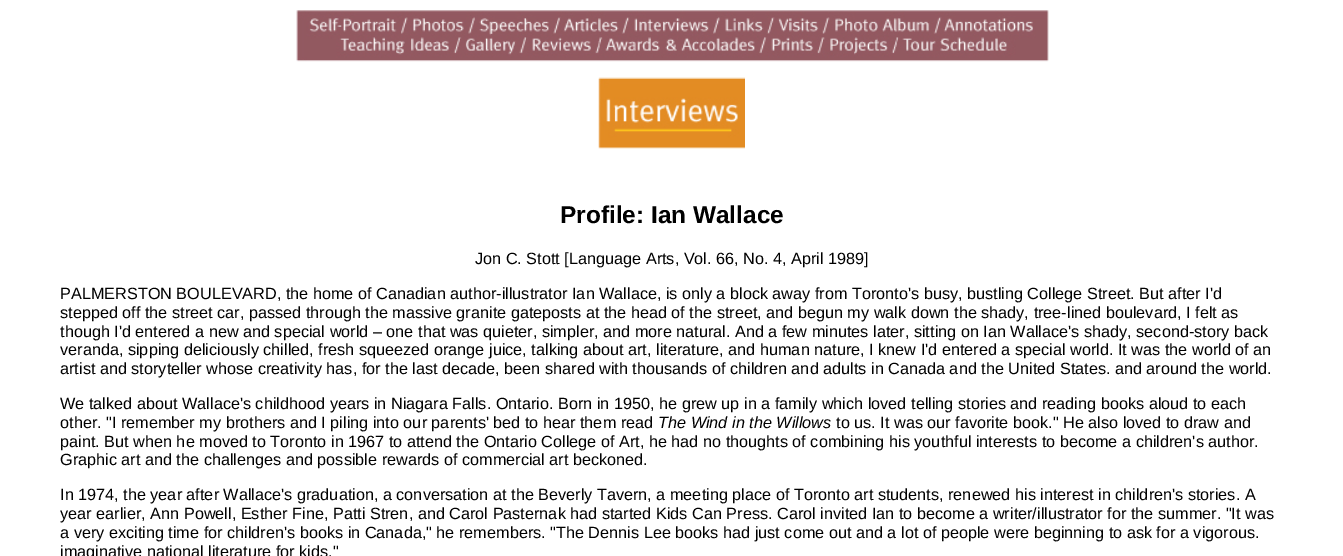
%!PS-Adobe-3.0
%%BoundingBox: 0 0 1343 556
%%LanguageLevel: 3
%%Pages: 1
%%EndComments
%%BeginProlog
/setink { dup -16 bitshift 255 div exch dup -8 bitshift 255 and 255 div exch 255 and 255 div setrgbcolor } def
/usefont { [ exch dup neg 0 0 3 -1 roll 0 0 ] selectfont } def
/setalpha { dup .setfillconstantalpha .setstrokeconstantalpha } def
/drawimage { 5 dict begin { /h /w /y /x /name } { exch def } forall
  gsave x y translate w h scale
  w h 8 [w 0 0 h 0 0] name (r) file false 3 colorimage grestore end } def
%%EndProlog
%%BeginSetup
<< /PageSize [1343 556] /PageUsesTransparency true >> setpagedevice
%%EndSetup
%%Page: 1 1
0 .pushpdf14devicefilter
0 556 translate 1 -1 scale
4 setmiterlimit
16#FFFFFF setink
0 0 1343 556 rectfill
(img1.raw) 296 10 753 52 drawimage
(img2.raw) 598 77 147 72 drawimage
0.25 setalpha
599 148 146 1 rectfill
/LiberationSans-Bold 24.4 usefont
1 setalpha
16#000000 setink
560 223 moveto (Profile: Ian Wallace) show
/LiberationSans-Regular 16.25 usefont
[
    [(Jon C. Stott [Language Arts, Vol. 66, No. 4, April 1989]) 475 264]
    [(PALMERSTON BOULEVARD, the home of Canadian author-illustrator Ian Wallace, is only a block away from Toronto's busy, bustling College Street. But after I'd) 60 299]
    [(stepped off the street car, passed through the massive granite gateposts at the head of the street, and begun my walk down the shady, tree-lined boulevard, I felt as) 60 318]
    [(though I'd entered a new and special world – one that was quieter, simpler, and more natural. And a few minutes later, sitting on Ian Wallace's shady, second-story back) 60 337]
    [(veranda, sipping deliciously chilled, fresh squeezed orange juice, talking about art, literature, and human nature, I knew I'd entered a special world. It was the world of an) 60 355]
    [(artist and storyteller whose creativity has, for the last decade, been shared with thousands of children and adults in Canada and the United States. and around the world.) 60 374]
    [(We talked about Wallace's childhood years in Niagara Falls. Ontario. Born in 1950, he grew up in a family which loved telling stories and reading books aloud to each) 60 409]
    [(other. "I remember my brothers and I piling into our parents' bed to hear them read) 60 428]
] { aload pop moveto show } forall
/LiberationSans-Italic 16.25 usefont
658 428 moveto (The Wind in the Willows) show
/LiberationSans-Regular 16.25 usefont
[
    [(to us. It was our favorite book." He also loved to draw and) 836 428]
    [(paint. But when he moved to Toronto in 1967 to attend the Ontario College of Art, he had no thoughts of combining his youthful interests to become a children's author.) 60 447]
    [(Graphic art and the challenges and possible rewards of commercial art beckoned.) 60 465]
    [(In 1974, the year after Wallace's graduation, a conversation at the Beverly Tavern, a meeting place of Toronto art students, renewed his interest in children's stories. A) 60 500]
    [(year earlier, Ann Powell, Esther Fine, Patti Stren, and Carol Pasternak had started Kids Can Press. Carol invited Ian to become a writer/illustrator for the summer. "It was) 60 519]
    [(a very exciting time for children's books in Canada," he remembers. "The Dennis Lee books had just come out and a lot of people were beginning to ask for a vigorous.) 60 538]
    [(imaginative national literature for kids.") 60 557]
] { aload pop moveto show } forall
.poppdf14devicefilter showpage
%%EOF
